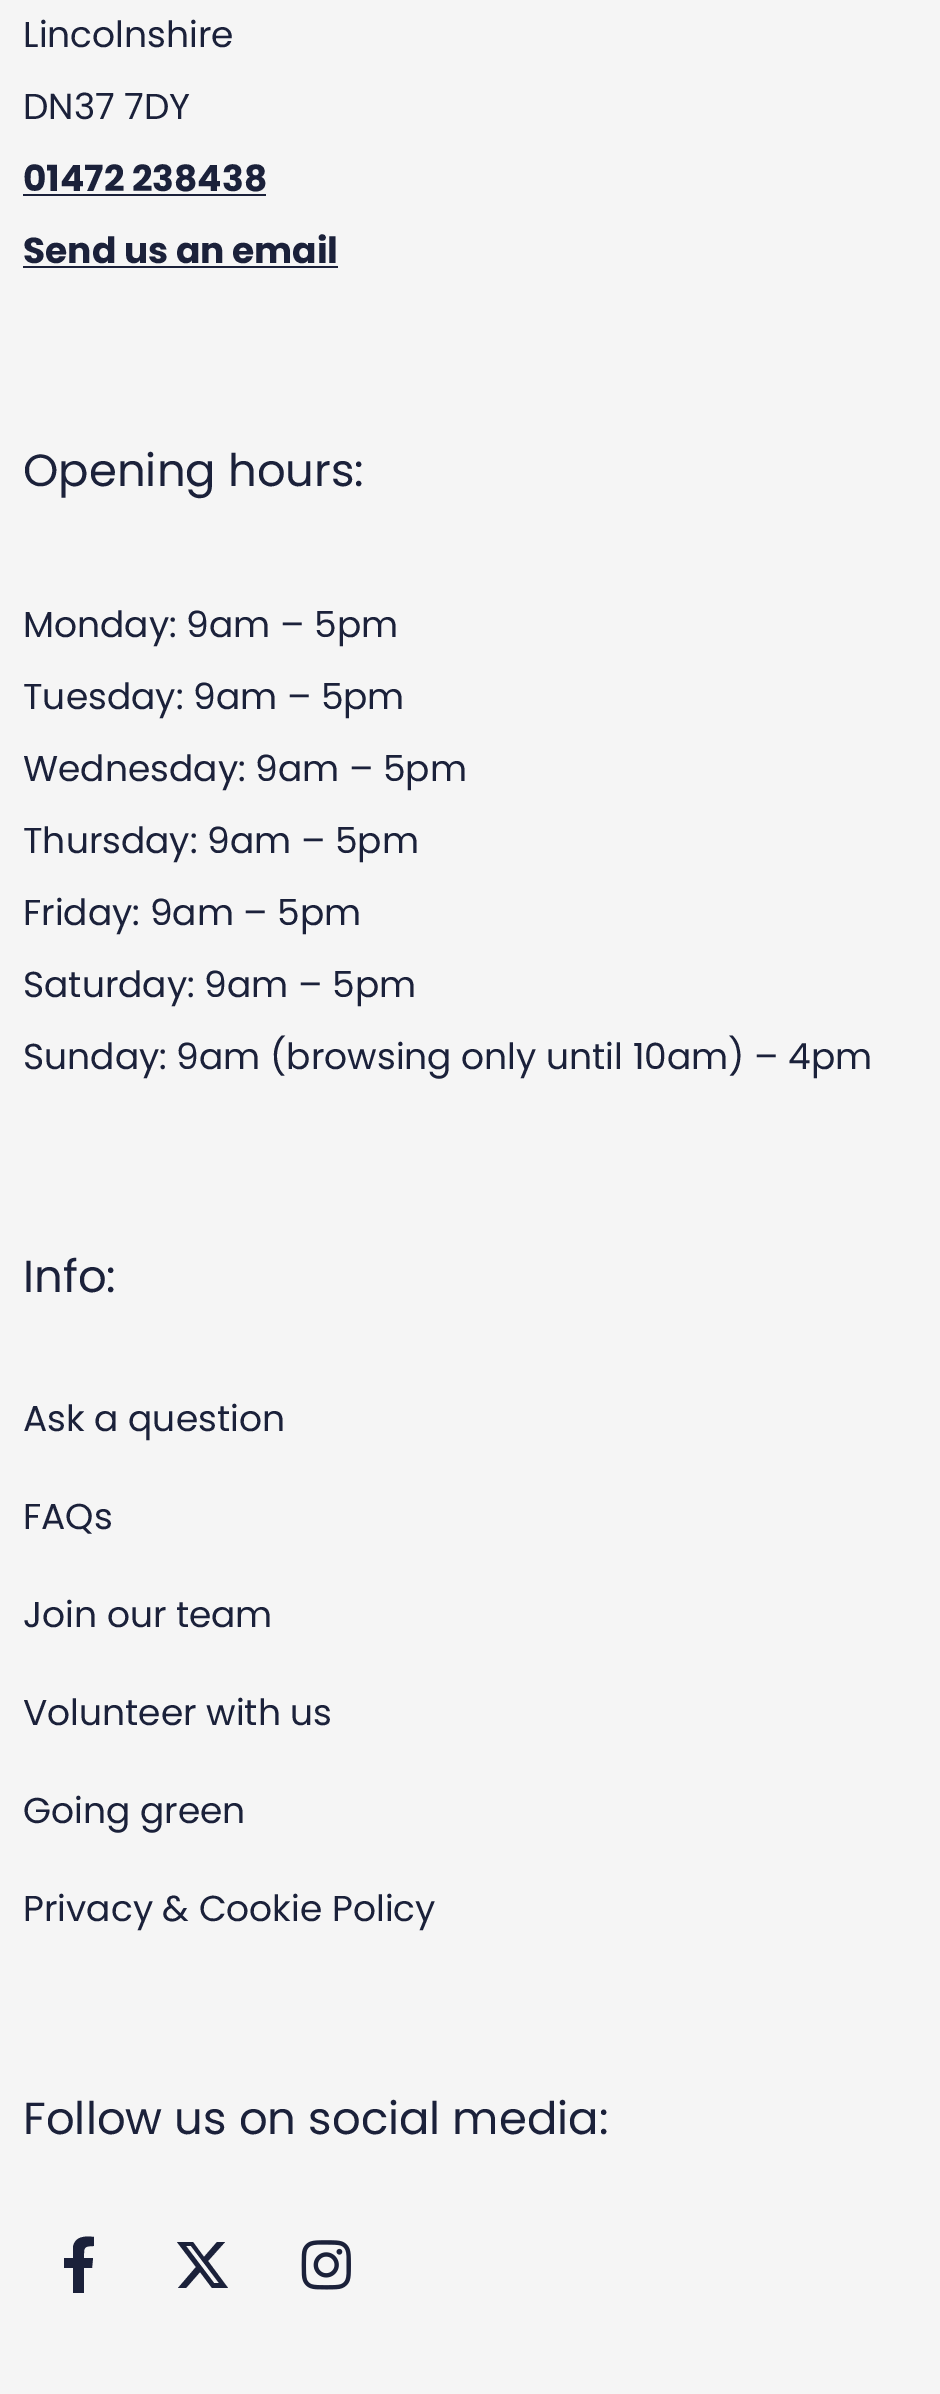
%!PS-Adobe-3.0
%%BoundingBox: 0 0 940 2394
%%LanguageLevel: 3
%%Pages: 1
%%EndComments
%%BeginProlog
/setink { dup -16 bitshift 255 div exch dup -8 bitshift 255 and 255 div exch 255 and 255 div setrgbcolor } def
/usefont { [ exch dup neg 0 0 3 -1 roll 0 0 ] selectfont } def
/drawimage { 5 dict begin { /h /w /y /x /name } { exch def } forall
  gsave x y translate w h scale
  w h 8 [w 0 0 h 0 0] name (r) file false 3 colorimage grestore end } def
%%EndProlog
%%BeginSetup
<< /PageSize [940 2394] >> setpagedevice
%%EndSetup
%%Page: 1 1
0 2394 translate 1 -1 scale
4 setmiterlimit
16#F5F5F5 setink
0 0 940 2394 rectfill
/Poppins-Regular 36 usefont
16#1B213A setink
23 47 moveto (Lincolnshire) show
23 119 moveto (DN37 7DY) show
/Poppins-Bold 36 usefont
23 191 moveto (01472 238438) show
23 194 243 2 rectfill
23 263 moveto (Send us an email) show
23 266 315 2 rectfill
/Poppins-Regular 45 usefont
23 486 moveto (Opening hours:) show
/Poppins-Regular 36 usefont
[
    [(Monday: 9am – 5pm) 23 637]
    [(Tuesday: 9am – 5pm) 23 709]
    [(Wednesday: 9am – 5pm) 23 781]
    [(Thursday: 9am – 5pm) 23 853]
    [(Friday: 9am – 5pm) 23 925]
    [(Saturday: 9am – 5pm) 23 997]
    [(Sunday: 9am \(browsing only until 10am\) – 4pm) 23 1069]
] { aload pop moveto show } forall
/Poppins-Regular 45 usefont
23 1292 moveto (Info:) show
/Poppins-Regular 36 usefont
[
    [(Ask a question) 23 1431]
    [(FAQs) 23 1529]
    [(Join our team) 23 1627]
    [(Volunteer with us) 23 1725]
    [(Going green) 23 1823]
    [(Privacy & Cookie Policy) 23 1921]
] { aload pop moveto show } forall
/Poppins-Regular 45 usefont
23 2134 moveto (Follow us on social media:) show
92 2268 moveto 84 2268 lineto 84 2293 lineto 73 2293 lineto 73 2268 lineto 64 2268 lineto 64 2258 lineto 73 2258 lineto 73 2247 lineto 75 2236 85 2236 94 2237 curveto 94 2246 lineto 83 2246 84 2248 84 2258 curveto 93 2258 lineto closepath fill
217 2242 moveto 225 2242 lineto 208 2261 lineto 228 2288 lineto 212 2288 lineto 200 2272 lineto 186 2288 lineto 178 2288 lineto 196 2267 lineto 177 2242 lineto 193 2242 lineto 204 2257 lineto closepath 214 2283 moveto 219 2283 lineto 191 2246 lineto 186 2246 lineto closepath fill
(img1.raw) 301 2240 50 50 drawimage
showpage
%%EOF
